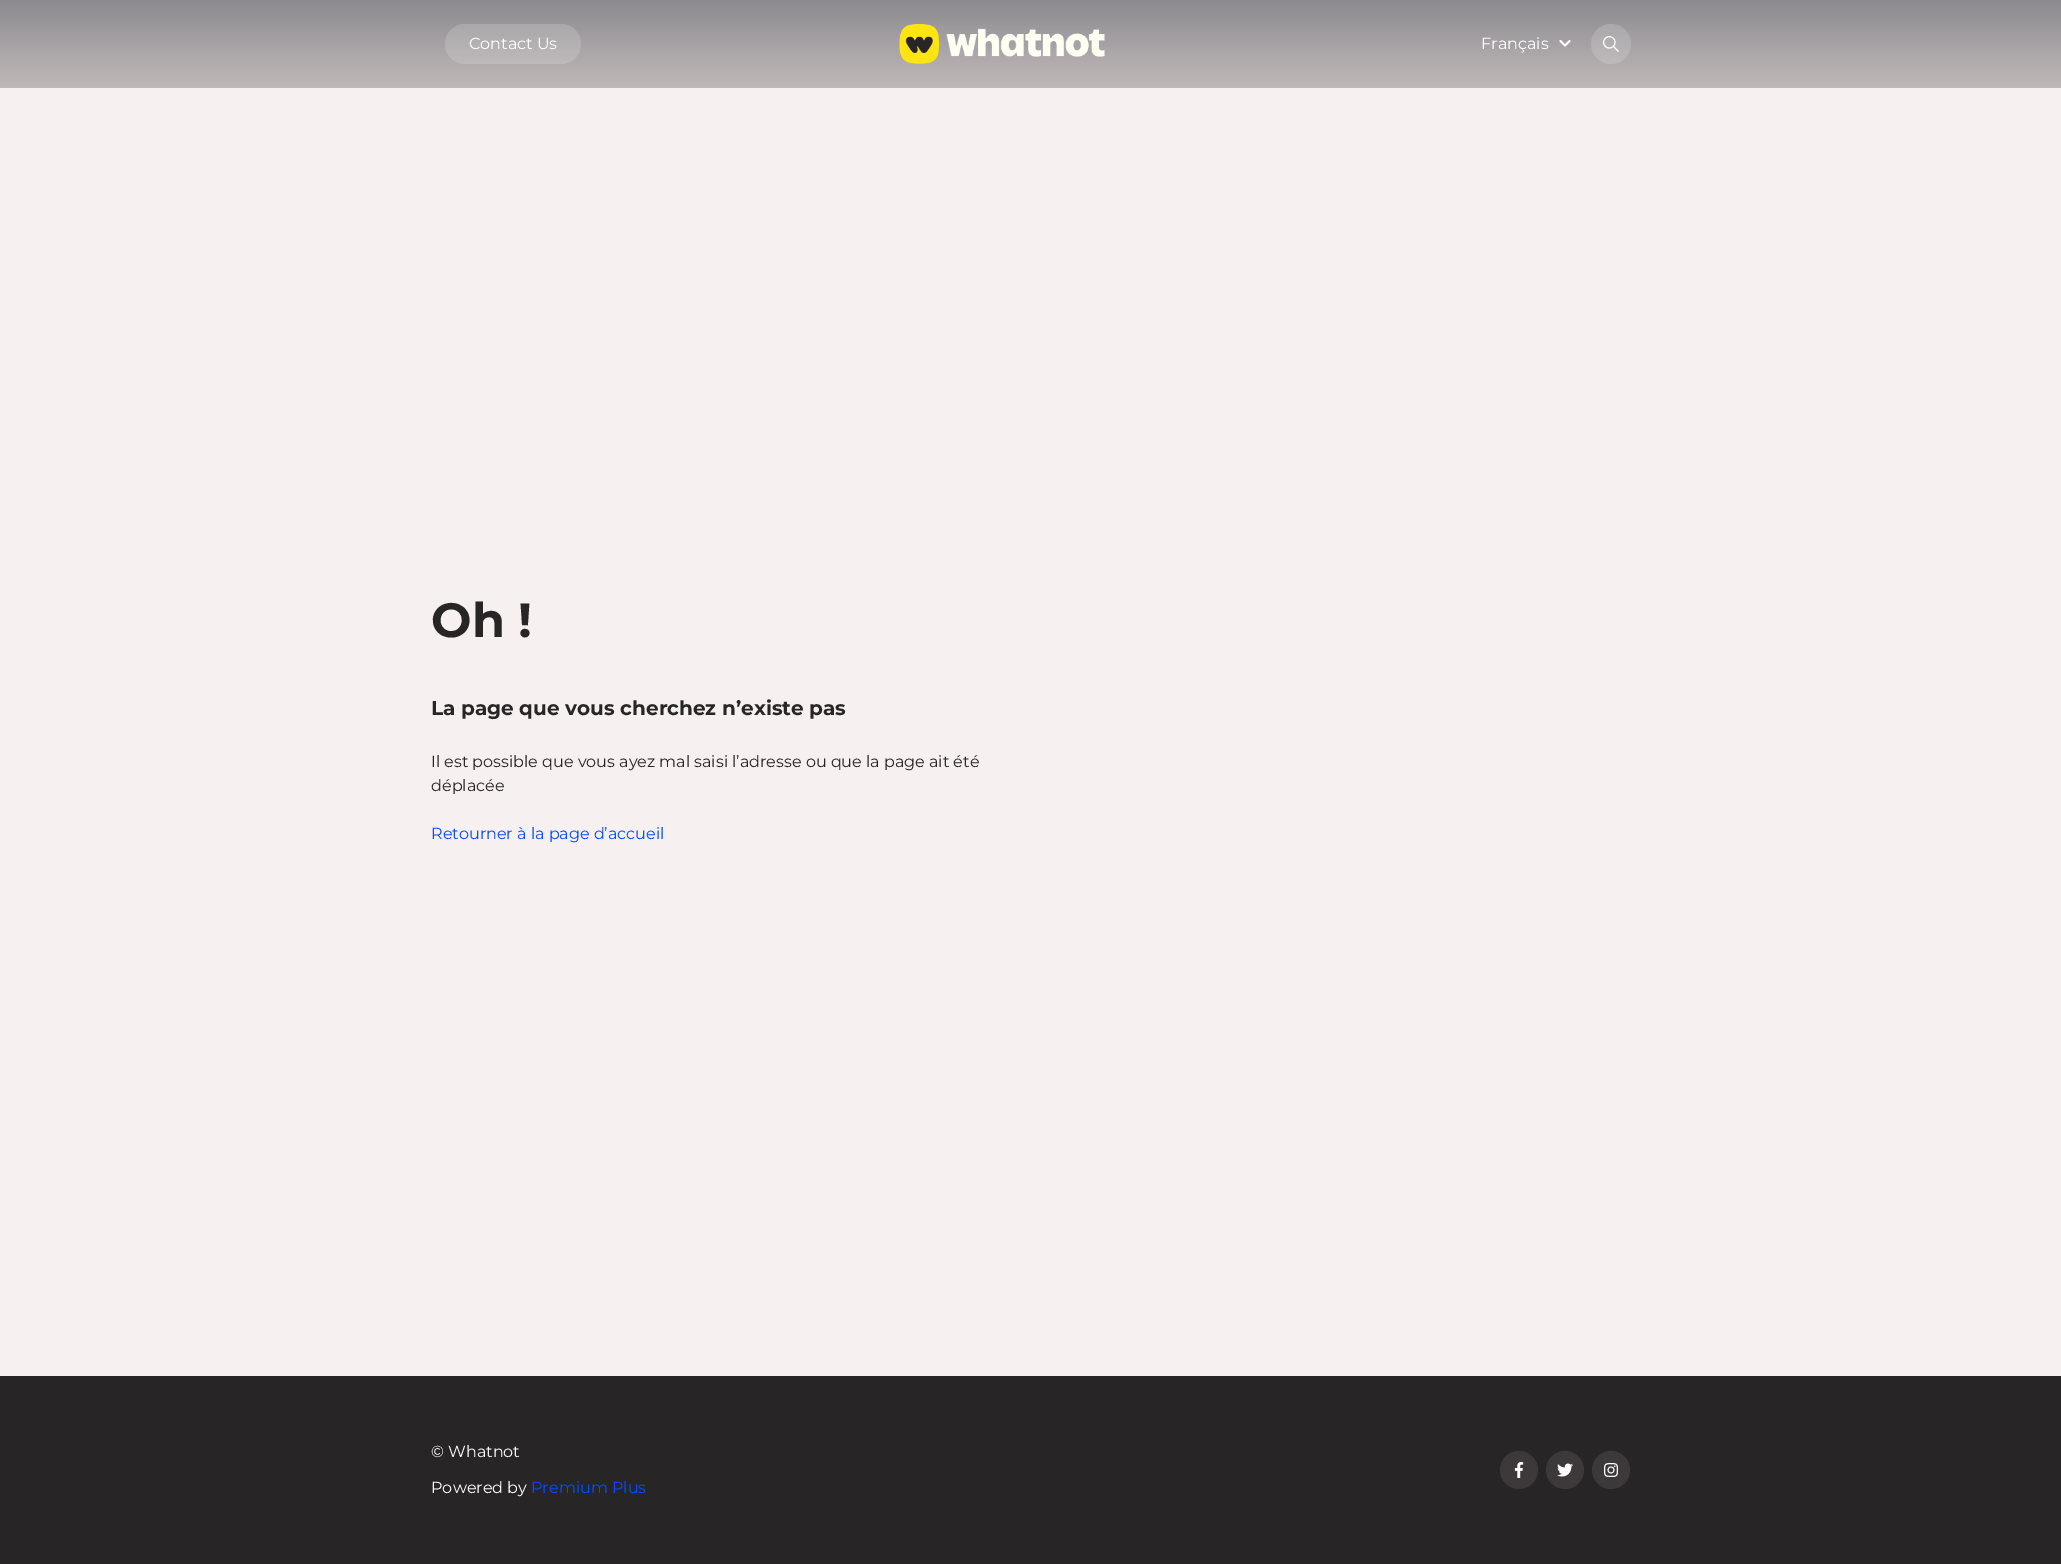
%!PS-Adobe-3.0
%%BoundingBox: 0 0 2061 1564
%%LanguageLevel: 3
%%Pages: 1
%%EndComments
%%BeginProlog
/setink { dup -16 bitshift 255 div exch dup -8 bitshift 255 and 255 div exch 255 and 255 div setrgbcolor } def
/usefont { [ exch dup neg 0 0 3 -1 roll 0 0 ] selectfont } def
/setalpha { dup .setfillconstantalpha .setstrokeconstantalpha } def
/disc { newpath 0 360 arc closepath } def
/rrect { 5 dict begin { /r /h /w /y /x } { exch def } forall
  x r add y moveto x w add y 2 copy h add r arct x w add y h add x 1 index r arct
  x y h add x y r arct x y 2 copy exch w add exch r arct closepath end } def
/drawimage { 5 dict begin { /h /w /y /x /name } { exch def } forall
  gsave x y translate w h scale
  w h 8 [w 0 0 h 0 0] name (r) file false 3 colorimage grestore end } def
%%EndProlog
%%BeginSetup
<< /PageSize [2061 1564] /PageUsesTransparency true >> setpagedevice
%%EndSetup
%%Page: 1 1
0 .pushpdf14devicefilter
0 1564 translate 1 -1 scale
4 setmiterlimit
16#F6F0F0 setink
0 0 2061 1564 rectfill
gsave 0 0 moveto 2061 0 lineto 2061 88 lineto 0 88 lineto closepath clip newpath
<< /ShadingType 2 /ColorSpace /DeviceRGB /Coords [1031 0 1031 88] /Extend [true true] /Function << /FunctionType 2 /Domain [0 1] /C0 [0.549 0.541 0.561] /C1 [0.753 0.725 0.725] /N 1 >> >> shfill grestore
0.16 setalpha
16#FFFFFF setink
445 24 136 40 20 rrect fill
/Montserrat-Regular 16 usefont
1 setalpha
469 49 moveto (Contact Us) show
(img1.raw) 899 24 206 40 drawimage
1481 49 moveto (Français) show
(img2.raw) 1559 40 12 7 drawimage
0.16 setalpha
1611 44 20 disc fill
1 setalpha
(img3.raw) 1603 36 16 16 drawimage
/Montserrat-Bold 48 usefont
16#282527 setink
431 637 moveto (Oh !) show
/Montserrat-Bold 20 usefont
431 715 moveto (La page que vous cherchez n’existe pas) show
/Montserrat-Regular 16 usefont
431 767 moveto (Il est possible que vous ayez mal saisi l’adresse ou que la page ait été) show
431 791 moveto (déplacée) show
16#084AFF setink
431 839 moveto (Retourner à la page d’accueil) show
16#282527 setink
0 1376 2061 188 rectfill
16#FFFFFF setink
431 1457 moveto (© Whatnot) show
431 1493 moveto (Powered by) show
16#084AFF setink
531 1493 moveto (Premium Plus) show
16#3D393B setink
1519 1470 19 disc fill
(img4.raw) 1514 1462 10 16 drawimage
1565 1470 19 disc fill
(img5.raw) 1557 1463 16 14 drawimage
1611 1470 19 disc fill
(img6.raw) 1604 1463 14 14 drawimage
.poppdf14devicefilter showpage
%%EOF
